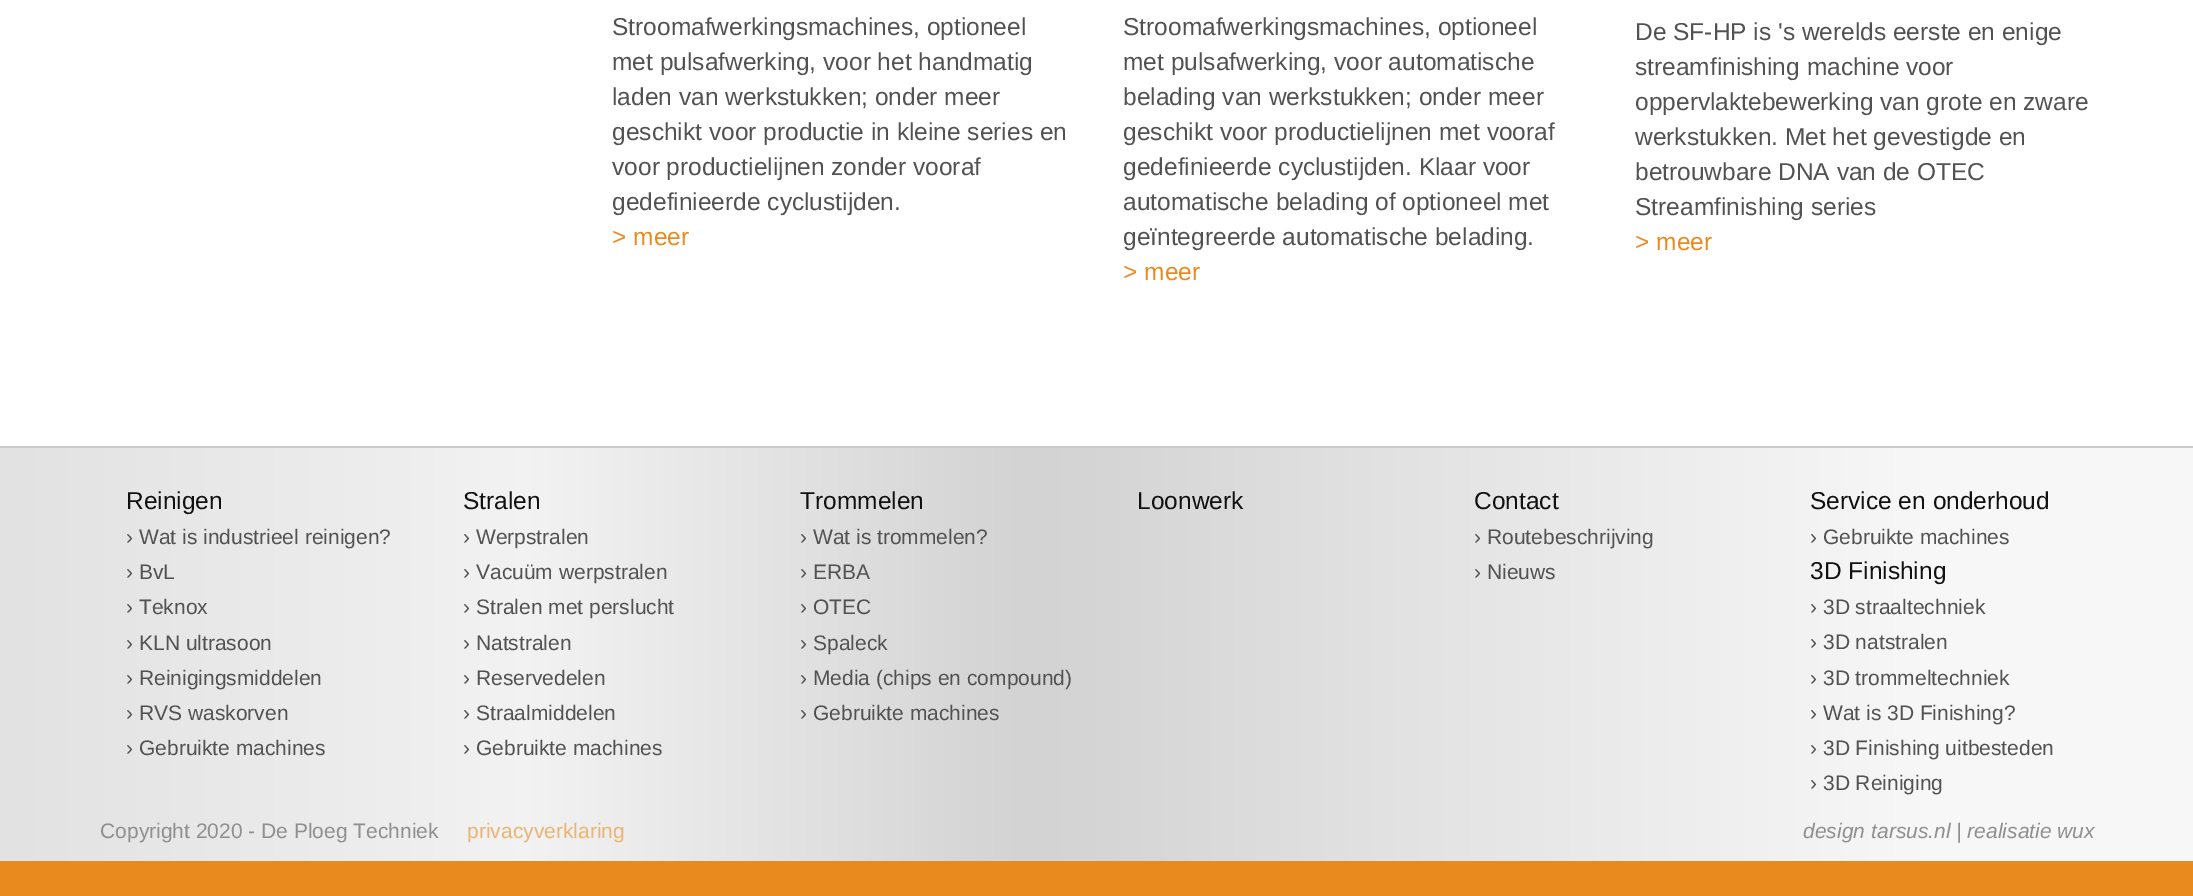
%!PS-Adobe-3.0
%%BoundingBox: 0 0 2193 896
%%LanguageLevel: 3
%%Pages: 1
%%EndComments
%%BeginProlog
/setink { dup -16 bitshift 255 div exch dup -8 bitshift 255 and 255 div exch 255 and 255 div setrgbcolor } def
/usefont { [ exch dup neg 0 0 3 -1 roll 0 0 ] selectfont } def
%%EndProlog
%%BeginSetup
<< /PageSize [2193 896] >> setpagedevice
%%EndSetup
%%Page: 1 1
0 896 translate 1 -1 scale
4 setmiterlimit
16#FFFFFF setink
0 0 2193 896 rectfill
/LiberationSans-Regular 24.5 usefont
16#525252 setink
[
    [(Stroomafwerkingsmachines, optioneel) 612 35]
    [(met pulsafwerking, voor het handmatig) 612 70]
    [(laden van werkstukken; onder meer) 612 105]
    [(geschikt voor productie in kleine series en) 612 140]
    [(voor productielijnen zonder vooraf) 612 175]
    [(gedefinieerde cyclustijden.) 612 210]
] { aload pop moveto show } forall
16#E98A1E setink
612 245 moveto (> meer) show
16#525252 setink
[
    [(Stroomafwerkingsmachines, optioneel) 1123 35]
    [(met pulsafwerking, voor automatische) 1123 70]
    [(belading van werkstukken; onder meer) 1123 105]
    [(geschikt voor productielijnen met vooraf) 1123 140]
    [(gedefinieerde cyclustijden. Klaar voor) 1123 175]
    [(automatische belading of optioneel met) 1123 210]
    [(geïntegreerde automatische belading.) 1123 245]
] { aload pop moveto show } forall
16#E98A1E setink
1123 280 moveto (> meer) show
16#525252 setink
[
    [(De SF-HP is 's werelds eerste en enige) 1635 40]
    [(streamfinishing machine voor) 1635 75]
    [(oppervlaktebewerking van grote en zware) 1635 110]
    [(werkstukken. Met het gevestigde en) 1635 145]
    [(betrouwbare DNA van de OTEC) 1635 180]
    [(Streamfinishing series) 1635 215]
] { aload pop moveto show } forall
16#E98A1E setink
1635 250 moveto (> meer) show
gsave 0 448 moveto 2193 448 lineto 2193 861 lineto 0 861 lineto closepath clip newpath
<< /ShadingType 2 /ColorSpace /DeviceRGB /Coords [0 671 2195 671] /Extend [true true] /Function << /FunctionType 3 /Domain [0 1] /Functions [<< /FunctionType 2 /Domain [0 1] /C0 [0.886 0.886 0.886] /C1 [0.949 0.949 0.949] /N 1 >> << /FunctionType 2 /Domain [0 1] /C0 [0.949 0.949 0.949] /C1 [0.827 0.827 0.827] /N 1 >> << /FunctionType 2 /Domain [0 1] /C0 [0.827 0.827 0.827] /C1 [0.969 0.969 0.969] /N 1 >> << /FunctionType 2 /Domain [0 1] /C0 [0.969 0.969 0.969] /C1 [0.969 0.969 0.969] /N 1 >>] /Bounds [0.24 0.47 0.88] /Encode [0 1 0 1 0 1 0 1] >> >> shfill grestore
16#CACACA setink
0 446 2193 2 rectfill
16#111111 setink
126 509 moveto (Reinigen) show
/LiberationSans-Regular 21 usefont
16#525252 setink
[
    [(› Wat is industrieel reinigen?) 126 544]
    [(› BvL) 126 579]
    [(› Teknox) 126 614]
    [(› KLN ultrasoon) 126 650]
    [(› Reinigingsmiddelen) 126 685]
    [(› RVS waskorven) 126 720]
    [(› Gebruikte machines) 126 755]
] { aload pop moveto show } forall
/LiberationSans-Regular 24.5 usefont
16#111111 setink
463 509 moveto (Stralen) show
/LiberationSans-Regular 21 usefont
16#525252 setink
[
    [(› Werpstralen) 463 544]
    [(› Vacuüm werpstralen) 463 579]
    [(› Stralen met perslucht) 463 614]
    [(› Natstralen) 463 650]
    [(› Reservedelen) 463 685]
    [(› Straalmiddelen) 463 720]
    [(› Gebruikte machines) 463 755]
] { aload pop moveto show } forall
/LiberationSans-Regular 24.5 usefont
16#111111 setink
800 509 moveto (Trommelen) show
/LiberationSans-Regular 21 usefont
16#525252 setink
[
    [(› Wat is trommelen?) 800 544]
    [(› ERBA) 800 579]
    [(› OTEC) 800 614]
    [(› Spaleck) 800 650]
    [(› Media \(chips en compound\)) 800 685]
    [(› Gebruikte machines) 800 720]
] { aload pop moveto show } forall
/LiberationSans-Regular 24.5 usefont
16#111111 setink
1137 509 moveto (Loonwerk) show
1474 509 moveto (Contact) show
/LiberationSans-Regular 21 usefont
16#525252 setink
1474 544 moveto (› Routebeschrijving) show
1474 579 moveto (› Nieuws) show
/LiberationSans-Regular 24.5 usefont
16#111111 setink
1810 509 moveto (Service en onderhoud) show
/LiberationSans-Regular 21 usefont
16#525252 setink
1810 544 moveto (› Gebruikte machines) show
/LiberationSans-Regular 24.5 usefont
16#111111 setink
1810 579 moveto (3D Finishing) show
/LiberationSans-Regular 21 usefont
16#525252 setink
[
    [(› 3D straaltechniek) 1810 614]
    [(› 3D natstralen) 1810 649]
    [(› 3D trommeltechniek) 1810 685]
    [(› Wat is 3D Finishing?) 1810 720]
    [(› 3D Finishing uitbesteden) 1810 755]
    [(› 3D Reiniging) 1810 790]
] { aload pop moveto show } forall
16#E98A1E setink
0 861 2193 35 rectfill
16#8F8F8F setink
100 838 moveto (Copyright 2020 - De Ploeg Techniek) show
16#ECB372 setink
467 838 moveto (privacyverklaring) show
/LiberationSans-Italic 21 usefont
16#8F8F8F setink
1803 838 moveto (design) show
1871 838 moveto (tarsus.nl | realisatie wux) show
showpage
%%EOF
